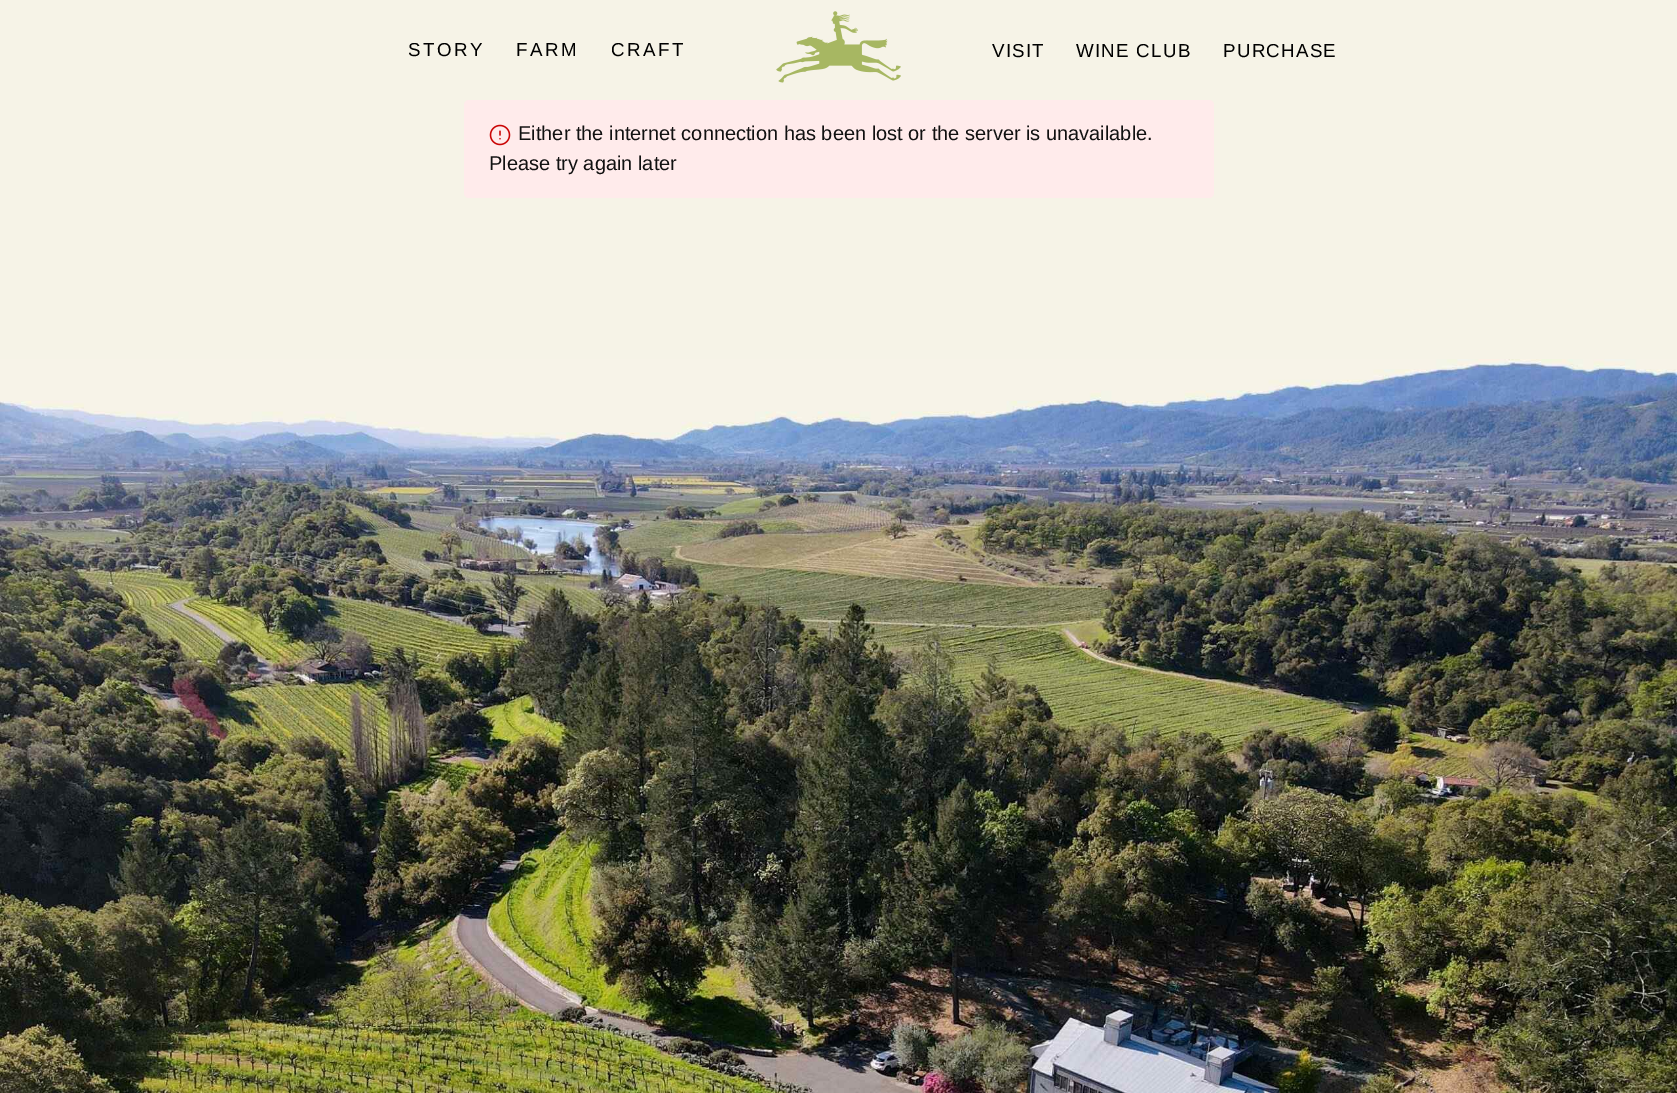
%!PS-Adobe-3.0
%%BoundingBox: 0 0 1677 1093
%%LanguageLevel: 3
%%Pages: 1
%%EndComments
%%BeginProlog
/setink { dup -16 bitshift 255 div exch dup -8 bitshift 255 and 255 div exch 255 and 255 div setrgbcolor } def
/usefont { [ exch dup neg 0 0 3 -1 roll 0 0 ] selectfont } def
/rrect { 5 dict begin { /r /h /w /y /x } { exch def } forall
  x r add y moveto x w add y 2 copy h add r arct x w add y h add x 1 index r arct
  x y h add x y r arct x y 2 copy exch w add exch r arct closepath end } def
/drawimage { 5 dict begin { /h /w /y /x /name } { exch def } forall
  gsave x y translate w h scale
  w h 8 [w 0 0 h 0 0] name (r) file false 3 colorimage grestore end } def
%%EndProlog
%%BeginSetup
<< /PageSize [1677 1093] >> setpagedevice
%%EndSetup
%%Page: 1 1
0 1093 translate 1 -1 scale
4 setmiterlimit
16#F6F3E7 setink
0 0 1677 1093 rectfill
/LiberationSans-Regular 18.75 usefont
16#000000 setink
408 56 moveto 2.5 0 (STORY) ashow
516 56 moveto 2.5 0 (FARM) ashow
611 56 moveto 2.5 0 (CRAFT) ashow
(img1.raw) 776 11 125 72 drawimage
992 57 moveto 1.25 0 (VISIT) ashow
1076 57 moveto 1.25 0 (WINE CLUB) ashow
1223 57 moveto 1.25 0 (PURCHASE) ashow
16#FFEBEB setink
464 100 750 98 5 rrect fill
(img2.raw) 489 124 22 22 drawimage
/LiberationSans-Regular 20 usefont
16#111111 setink
518 140 moveto (Either the internet connection has been lost or the server is unavailable.) show
489 170 moveto (Please try again later) show
(img3.raw) 0 359 1677 734 drawimage
showpage
%%EOF
